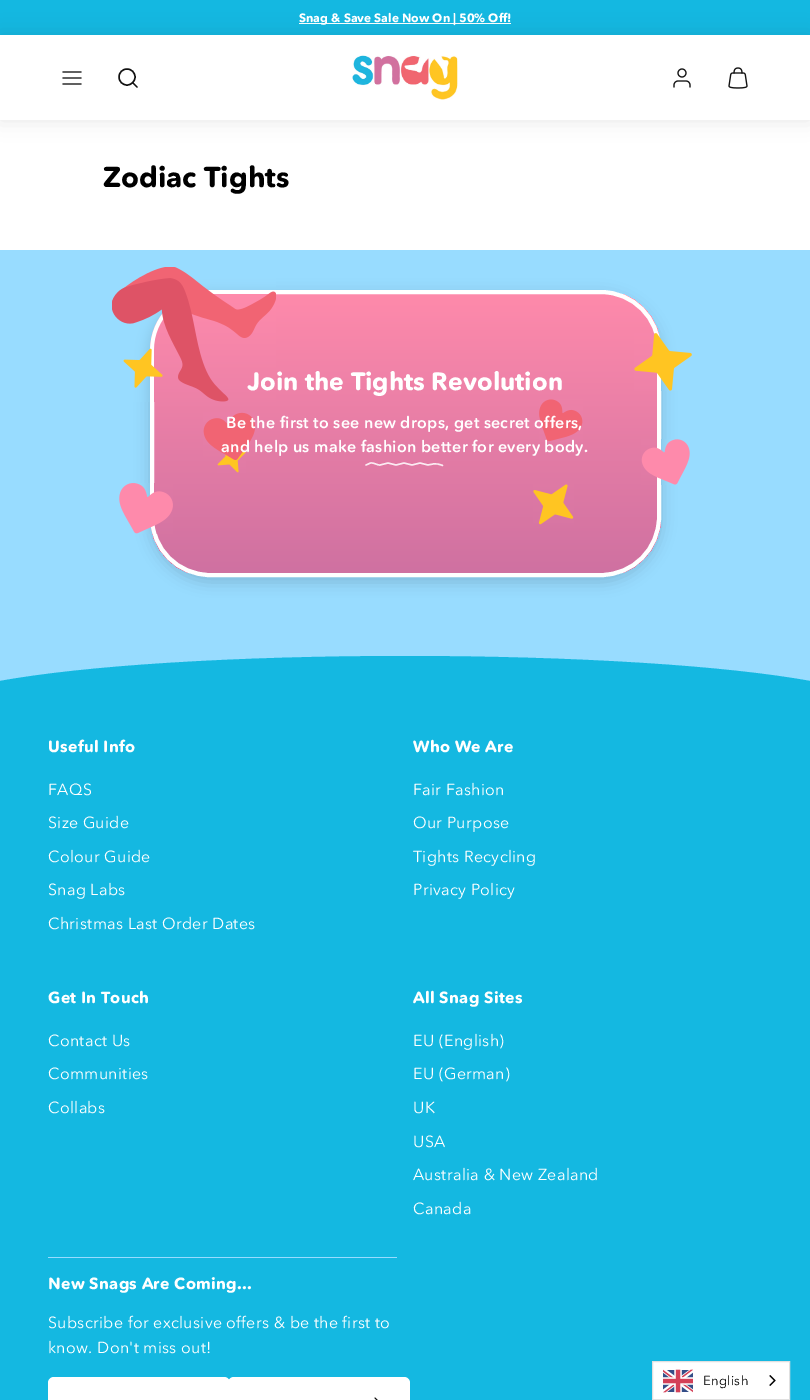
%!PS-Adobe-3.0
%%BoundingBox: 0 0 810 1400
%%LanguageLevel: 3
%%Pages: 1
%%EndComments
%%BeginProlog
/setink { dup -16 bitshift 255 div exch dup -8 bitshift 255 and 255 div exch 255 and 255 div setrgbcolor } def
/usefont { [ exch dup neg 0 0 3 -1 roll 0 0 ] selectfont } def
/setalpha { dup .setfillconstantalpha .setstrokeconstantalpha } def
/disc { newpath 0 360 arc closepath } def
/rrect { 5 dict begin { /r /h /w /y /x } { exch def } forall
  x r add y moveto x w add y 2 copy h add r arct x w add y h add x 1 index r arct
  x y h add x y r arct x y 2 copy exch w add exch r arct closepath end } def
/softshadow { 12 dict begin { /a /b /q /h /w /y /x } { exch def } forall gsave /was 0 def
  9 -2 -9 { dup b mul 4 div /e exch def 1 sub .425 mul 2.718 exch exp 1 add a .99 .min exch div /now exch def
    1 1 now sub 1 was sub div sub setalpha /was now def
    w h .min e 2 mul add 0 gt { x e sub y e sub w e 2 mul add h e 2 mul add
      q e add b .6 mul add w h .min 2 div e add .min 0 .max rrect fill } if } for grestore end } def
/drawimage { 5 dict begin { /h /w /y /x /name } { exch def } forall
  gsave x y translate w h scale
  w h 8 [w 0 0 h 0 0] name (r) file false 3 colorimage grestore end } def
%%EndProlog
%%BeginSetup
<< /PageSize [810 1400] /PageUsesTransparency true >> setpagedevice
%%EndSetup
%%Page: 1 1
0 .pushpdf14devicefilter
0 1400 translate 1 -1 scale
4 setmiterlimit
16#FFFFFF setink
0 0 810 1400 rectfill
16#14B8E1 setink
0 0 810 35 rectfill
16#FFFFFF setink
299 23 212 1 rectfill
gsave
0 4 moveto 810 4 lineto 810 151 lineto 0 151 lineto closepath 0 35 moveto 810 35 lineto 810 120 lineto 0 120 lineto closepath eoclip newpath
16#000000 setink
0 35 810 85 0 10 0.1 softshadow
grestore
(img1.raw) 62 71 20 14 drawimage
16#111111 setink
1.4 setlinewidth
127 77 8 disc stroke
1 setlinecap
1 setlinejoin
137 87 moveto 132.5 82.5 lineto stroke
(img2.raw) 352 55 106 45 drawimage
(img3.raw) 673 68 18 20 drawimage
(img4.raw) 728 67 20 22 drawimage
/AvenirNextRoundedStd-Bold 12 usefont
16#FFFFFF setink
299 22 moveto (Snag & Save Sale Now On | 50% Off!) show
/AvenirNextRoundedStd-Bold 28.5 usefont
16#000000 setink
103 187 moveto (Zodiac Tights) show
16#98DCFF setink
0 250 810 348 rectfill
16#000000 setink
150 295 511 287 60 7.5 0.15 softshadow
gsave
150 290 511 287 60 rrect clip newpath
gsave 150 294 moveto 661 294 lineto 661 573 lineto 150 573 lineto closepath clip newpath
<< /ShadingType 2 /ColorSpace /DeviceRGB /Coords [406 294 406 573] /Extend [true true] /Function << /FunctionType 2 /Domain [0 1] /C0 [0.996 0.541 0.671] /C1 [0.812 0.443 0.631] /N 1 >> >> shfill grestore
grestore
16#FFFFFF setink
4 setlinewidth
0 setlinecap
0 setlinejoin
152 292 507 283 58 rrect stroke
(img5.raw) 112 267 164 135 drawimage
(img6.raw) 634 333 58 58 drawimage
(img7.raw) 123 348 40 40 drawimage
/AvenirNextRoundedStd-Bold 24.9 usefont
247 390 moveto (Join the Tights Revolution) show
(img11.raw) 217 451 29 22 drawimage
(img8.raw) 203 412 52 48 drawimage
(img9.raw) 539 399 44 43 drawimage
/AvenirNextRoundedStd-SemiBold 16 usefont
226 428 moveto 0.3 0 (Be the first to see new drops, get secret offers,) ashow
221 452 moveto 0.3 0 (and help us make fashion better for every body.) ashow
16#FBEBF2 setink
1.4 setlinewidth
1 setlinecap
1 setlinejoin
366 465 moveto 370.5 463 lineto 374 462.5 376.5 465 380 465 curveto 388 463 lineto 396 465 lineto 404 463 lineto 412 465 lineto 420 463 lineto 428 465 lineto 433 464 lineto 436 463.5 439.5 464 442.5 465.5 curveto stroke
(img10.raw) 641 439 49 46 drawimage
(img12.raw) 119 483 54 51 drawimage
(img13.raw) 533 484 41 41 drawimage
16#98DCFF setink
0 598 810 83 rectfill
16#14B8E1 setink
810 698 moveto 810 681 lineto 728 666 578 656 405 656 curveto 232 656 82 666 0 681 curveto 0 698 lineto closepath fill
0 698 810 702 rectfill
/AvenirNextRoundedStd-Bold 16 usefont
16#FFFFFF setink
48 752 moveto 0.3 0 (Useful Info) ashow
/AvenirNextRoundedStd-Regular 16 usefont
48 795 moveto 0.3 0 (FAQS) ashow
48 828 moveto 0.3 0 (Size Guide) ashow
48 862 moveto 0.3 0 (Colour Guide) ashow
48 895 moveto 0.3 0 (Snag Labs) ashow
48 929 moveto 0.3 0 (Christmas Last Order Dates) ashow
/AvenirNextRoundedStd-Bold 16 usefont
413 752 moveto 0.3 0 (Who We Are) ashow
/AvenirNextRoundedStd-Regular 16 usefont
413 795 moveto 0.3 0 (Fair Fashion) ashow
413 828 moveto 0.3 0 (Our Purpose) ashow
413 862 moveto 0.3 0 (Tights Recycling) ashow
413 895 moveto 0.3 0 (Privacy Policy) ashow
/AvenirNextRoundedStd-Bold 16 usefont
48 1003 moveto 0.3 0 (Get In Touch) ashow
/AvenirNextRoundedStd-Regular 16 usefont
48 1046 moveto 0.3 0 (Contact Us) ashow
48 1079 moveto 0.3 0 (Communities) ashow
48 1113 moveto 0.3 0 (Collabs) ashow
/AvenirNextRoundedStd-Bold 16 usefont
413 1003 moveto 0.3 0 (All Snag Sites) ashow
/AvenirNextRoundedStd-Regular 16 usefont
413 1046 moveto 0.3 0 (EU \(English\)) ashow
413 1079 moveto 0.3 0 (EU \(German\)) ashow
413 1113 moveto 0.3 0 (UK) ashow
413 1147 moveto 0.3 0 (USA) ashow
413 1180 moveto 0.3 0 (Australia & New Zealand) ashow
413 1214 moveto 0.3 0 (Canada) ashow
16#98DCFF setink
48 1257 349 1 rectfill
/AvenirNextRoundedStd-Bold 16 usefont
16#FFFFFF setink
48 1289 moveto 0.3 0 (New Snags Are Coming...) ashow
/AvenirNextRoundedStd-Regular 16 usefont
48 1328 moveto 0.3 0 (Subscribe for exclusive offers & be the first to) ashow
48 1353 moveto 0.3 0 (know. Don't miss out!) ashow
48 1377 182 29 6 rrect fill
228 1377 182 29 6 rrect fill
16#111111 setink
0.9 setlinewidth
375 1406 moveto 379 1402 lineto 375 1398 lineto stroke
16#FFFFFF setink
652.5 1361.5 moveto 789.5 1361.5 lineto 789.5 1399.5 lineto 652.5 1399.5 lineto closepath gsave fill grestore
16#E0E0E0 setink
1 setlinewidth
0 setlinecap
0 setlinejoin
stroke
(img14.raw) 663 1369 30 24 drawimage
/AvenirNextRoundedStd-Regular 13 usefont
16#000000 setink
703 1385 moveto 0.3 0 (English) ashow
(img15.raw) 769 1375 7 11 drawimage
.poppdf14devicefilter showpage
%%EOF
